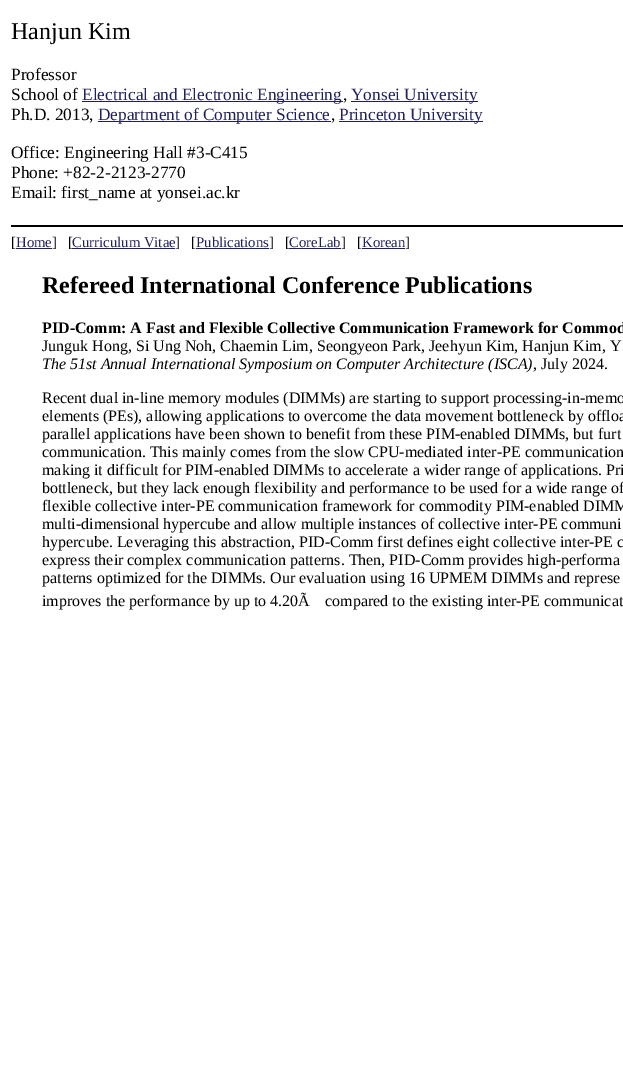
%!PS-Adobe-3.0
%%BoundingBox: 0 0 623 1069
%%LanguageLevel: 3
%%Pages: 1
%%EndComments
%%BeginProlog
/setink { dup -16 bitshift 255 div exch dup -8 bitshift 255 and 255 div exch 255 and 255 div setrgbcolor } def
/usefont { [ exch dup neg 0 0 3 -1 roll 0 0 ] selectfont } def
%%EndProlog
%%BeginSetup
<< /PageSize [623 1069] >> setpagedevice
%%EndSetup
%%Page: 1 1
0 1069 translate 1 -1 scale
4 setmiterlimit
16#FFFFFF setink
0 0 623 1069 rectfill
/LiberationSerif-Regular 24 usefont
16#000000 setink
11 39 moveto (Hanjun Kim) show
/LiberationSerif-Regular 17.3 usefont
11 80 moveto (Professor) show
11 100 moveto (School of) show
16#202060 setink
82 101 261 1 rectfill
82 100 moveto (Electrical and Electronic Engineering) show
16#000000 setink
343 100 moveto (,) show
16#202060 setink
351 101 127 1 rectfill
351 100 moveto (Yonsei University) show
16#000000 setink
11 120 moveto (Ph.D. 2013,) show
16#202060 setink
98 121 233 1 rectfill
98 120 moveto (Department of Computer Science) show
16#000000 setink
331 120 moveto (,) show
16#202060 setink
339 121 144 1 rectfill
339 120 moveto (Princeton University) show
16#000000 setink
[
    [(Office: Engineering Hall #3-C415) 11 158]
    [(Phone: +82-2-2123-2770) 11 178]
    [(Email: first_name at yonsei.ac.kr) 11 198]
] { aload pop moveto show } forall
11 225 612 2 rectfill
/LiberationSerif-Regular 14.75 usefont
11 247 moveto ([) show
16#202060 setink
16 248 36 1 rectfill
16 247 moveto (Home) show
16#000000 setink
52 247 moveto (]) show
68 247 moveto ([) show
16#202060 setink
72 248 103 1 rectfill
72 247 moveto (Curriculum Vitae) show
16#000000 setink
175 247 moveto (]) show
191 247 moveto ([) show
16#202060 setink
196 248 73 1 rectfill
196 247 moveto (Publications) show
16#000000 setink
269 247 moveto (]) show
285 247 moveto ([) show
16#202060 setink
289 248 52 1 rectfill
289 247 moveto (CoreLab) show
16#000000 setink
341 247 moveto (]) show
357 247 moveto ([) show
16#202060 setink
362 247 moveto (Korean) show
362 248 43 1 rectfill
16#000000 setink
405 247 moveto (]) show
/LiberationSerif-Bold 24 usefont
42 293 moveto (Refereed International Conference Publications) show
/LiberationSerif-Bold 16 usefont
42 333 moveto (PID-Comm: A Fast and Flexible Collective Communication Framework for Commod) show
/LiberationSerif-Regular 16 usefont
42 351 moveto (Junguk Hong, Si Ung Noh, Chaemin Lim, Seongyeon Park, Jeehyun Kim, Hanjun Kim, Y) show
/LiberationSerif-Italic 16 usefont
42 369 moveto (The 51st Annual International Symposium on Computer Architecture \(ISCA\)) show
/LiberationSerif-Regular 16 usefont
[
    [(, July 2024.) 533 369]
    [(Recent dual in-line memory modules \(DIMMs\) are starting to support processing-in-memo) 42 403]
    [(elements \(PEs\), allowing applications to overcome the data movement bottleneck by offloa) 42 421]
    [(parallel applications have been shown to benefit from these PIM-enabled DIMMs, but furt) 42 439]
    [(communication. This mainly comes from the slow CPU-mediated inter-PE communication) 42 457]
    [(making it difficult for PIM-enabled DIMMs to accelerate a wider range of applications. Pri) 42 475]
    [(bottleneck, but they lack enough flexibility and performance to be used for a wide range of) 42 493]
    [(flexible collective inter-PE communication framework for commodity PIM-enabled DIMM) 42 511]
    [(multi-dimensional hypercube and allow multiple instances of collective inter-PE communi) 42 529]
    [(hypercube. Leveraging this abstraction, PID-Comm first defines eight collective inter-PE c) 42 547]
    [(express their complex communication patterns. Then, PID-Comm provides high-performa) 42 565]
    [(patterns optimized for the DIMMs. Our evaluation using 16 UPMEM DIMMs and represe) 42 583]
    [(improves the performance by up to 4.20Ã) 42 606]
    [(compared to the existing inter-PE communicat) 325 606]
] { aload pop moveto show } forall
showpage
%%EOF
